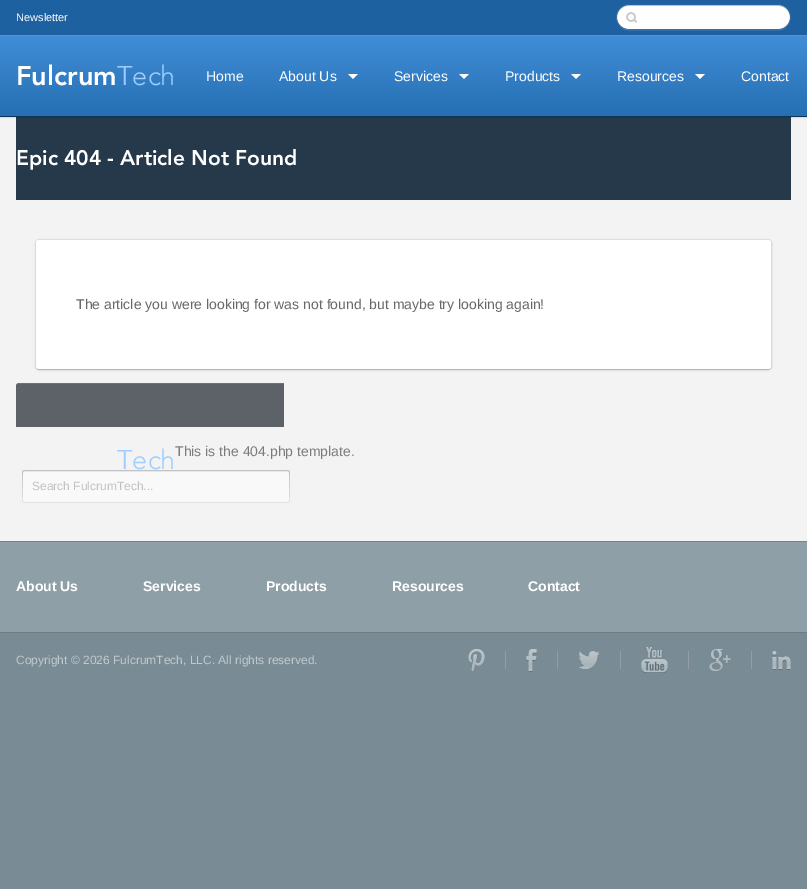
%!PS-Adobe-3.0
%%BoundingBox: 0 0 807 889
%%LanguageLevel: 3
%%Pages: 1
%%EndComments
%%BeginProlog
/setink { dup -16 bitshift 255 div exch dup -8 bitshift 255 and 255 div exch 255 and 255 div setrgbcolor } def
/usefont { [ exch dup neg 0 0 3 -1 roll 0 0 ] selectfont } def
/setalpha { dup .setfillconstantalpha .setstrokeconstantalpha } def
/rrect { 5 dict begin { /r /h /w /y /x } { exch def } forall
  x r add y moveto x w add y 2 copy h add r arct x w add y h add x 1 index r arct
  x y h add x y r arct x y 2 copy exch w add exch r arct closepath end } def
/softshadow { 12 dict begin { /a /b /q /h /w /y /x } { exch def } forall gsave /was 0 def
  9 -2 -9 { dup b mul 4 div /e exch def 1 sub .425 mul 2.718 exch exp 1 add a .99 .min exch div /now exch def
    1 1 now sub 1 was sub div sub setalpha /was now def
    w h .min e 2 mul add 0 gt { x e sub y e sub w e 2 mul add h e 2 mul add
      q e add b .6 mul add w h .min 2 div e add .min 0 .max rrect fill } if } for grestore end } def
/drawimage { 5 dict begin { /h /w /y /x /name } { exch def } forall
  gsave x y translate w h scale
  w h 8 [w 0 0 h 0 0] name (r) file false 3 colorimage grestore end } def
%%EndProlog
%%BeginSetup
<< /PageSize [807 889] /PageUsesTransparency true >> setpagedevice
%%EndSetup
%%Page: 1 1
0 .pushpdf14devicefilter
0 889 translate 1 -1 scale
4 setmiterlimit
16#798C95 setink
0 0 807 889 rectfill
16#1E61A0 setink
0 0 807 35 rectfill
/LiberationSans-Regular 11 usefont
16#FFFFFF setink
16 21 moveto (Newsletter) show
[
    [0 116 807 1 16#10426F]
    [0 117 807 424 16#F3F3F3]
    [16 117 775 83 16#26394A]
] { aload pop setink rectfill } forall
16#000000 setink
0 36 807 81 0 1 0.27 softshadow
gsave 0 36 moveto 807 36 lineto 807 116 lineto 0 116 lineto closepath clip newpath
<< /ShadingType 2 /ColorSpace /DeviceRGB /Coords [404 35 404 116] /Extend [true true] /Function << /FunctionType 2 /Domain [0 1] /C0 [0.255 0.553 0.843] /C1 [0.145 0.435 0.698] /N 1 >> >> shfill grestore
16#5498DB setink
0 35 807 1 rectfill
(img1.raw) 616 4 175 27 drawimage
/Avenir-Black 27 usefont
16#FFFFFF setink
16 85 moveto (Fulcrum) show
/Avenir-Light 27 usefont
16#9DCEFF setink
117 85 moveto (Tech) show
/LiberationSans-Regular 14 usefont
16#FFFFFF setink
206 81 moveto (Home) show
279 81 moveto (About Us) show
348 74 moveto 358 74 lineto 353 79 lineto closepath fill
394 81 moveto (Services) show
459 74 moveto 469 74 lineto 464 79 lineto closepath fill
505 81 moveto (Products) show
571 74 moveto 581 74 lineto 576 79 lineto closepath fill
617 81 moveto (Resources) show
695 74 moveto 705 74 lineto 700 79 lineto closepath fill
741 81 moveto (Contact) show
/Avenir-Black 21 usefont
16 165 moveto (Epic 404 - Article Not Found) show
16#D1D1D1 setink
36 366 moveto 36 368 37 370 39 370 curveto 768 370 lineto 770 370 771 368 771 366 curveto 771 368 770 369 768 369 curveto 39 369 lineto 37 369 36 368 36 366 curveto closepath fill
16#000000 setink
36 241 735 129 3 1.5 0.11 softshadow
0.07 setalpha
35.5 239.5 736 130 3.5 rrect stroke
1 setalpha
16#FFFFFF setink
36 240 735 129 3 rrect fill
/LiberationSans-Regular 14 usefont
16#676767 setink
76 309 moveto (The article you were looking for was not found, but maybe try looking again!) show
16#5C6267 setink
19 383 moveto 284 383 lineto 284 427 lineto 16 427 lineto 16 386 lineto 16 384.5 17.5 383 19 383 curveto closepath fill
16#6D7377 setink
18 383 266 1 rectfill
/Avenir-Light 27 usefont
16#9DCEFF setink
117 469 moveto (Tech) show
16#F9F9F9 setink
22 470 268 33 3 rrect fill
gsave
22 470 268 33 3 rrect clip newpath
gsave 289 471 moveto 290 471 lineto 290 502 lineto 289 502 lineto closepath clip newpath
<< /ShadingType 2 /ColorSpace /DeviceRGB /Coords [290 471 290 502] /Extend [true true] /Function << /FunctionType 2 /Domain [0 1] /C0 [0.765 0.765 0.765] /C1 [0.886 0.886 0.886] /N 1 >> >> shfill grestore
gsave 22 471 moveto 23 471 lineto 23 502 lineto 22 502 lineto closepath clip newpath
<< /ShadingType 2 /ColorSpace /DeviceRGB /Coords [22 471 23 502] /Extend [true true] /Function << /FunctionType 2 /Domain [0 1] /C0 [0.765 0.765 0.765] /C1 [0.886 0.886 0.886] /N 1 >> >> shfill grestore
grestore
0.07 setalpha
16#000000 setink
25 472 moveto 287 472 lineto 289 472 290 473 290 474 curveto 290 472 289 471 287 471 curveto 25 471 lineto 23 471 22 472 22 474 curveto 22 473 23 472 25 472 curveto closepath fill
1 setalpha
16#C3C3C3 setink
25 470 moveto 23 470 22 471 22 473 curveto 22 472 23 471 25 471 curveto 287 471 lineto 289 471 290 472 290 473 curveto 290 471 289 470 287 470 curveto closepath fill
16#E2E2E2 setink
287 503 moveto 289 503 290 502 290 500 curveto 290 501 289 502 287 502 curveto 25 502 lineto 23 502 22 501 22 500 curveto 22 502 23 503 25 503 curveto closepath fill
/LiberationSans-Regular 12 usefont
16#C1C1C1 setink
32 490 moveto (Search FulcrumTech...) show
/LiberationSans-Regular 14 usefont
16#7C7C7C setink
175 456 moveto (This is the 404.php template.) show
16#8F9FA7 setink
0 542 807 90 rectfill
16#758289 setink
0 541 807 1 rectfill
/LiberationSans-Bold 14 usefont
16#FFFFFF setink
[
    [(About Us) 16 591]
    [(Services) 143 591]
    [(Products) 266 591]
    [(Resources) 392 591]
    [(Contact) 528 591]
] { aload pop moveto show } forall
16#6C7D85 setink
0 632 807 1 rectfill
/LiberationSans-Regular 12 usefont
16#C0C9CD setink
16 664 moveto (Copyright © 2026 FulcrumTech, LLC. All rights reserved.) show
(img2.raw) 468 649 17 22 drawimage
16#929EA3 setink
505 651 1 18 rectfill
(img3.raw) 526 649 11 23 drawimage
557 651 1 18 rectfill
(img4.raw) 579 651 21 18 drawimage
620 651 1 18 rectfill
(img5.raw) 641 647 27 26 drawimage
688 651 1 18 rectfill
(img6.raw) 709 649 22 22 drawimage
751 651 1 18 rectfill
(img7.raw) 772 651 19 19 drawimage
.poppdf14devicefilter showpage
%%EOF
